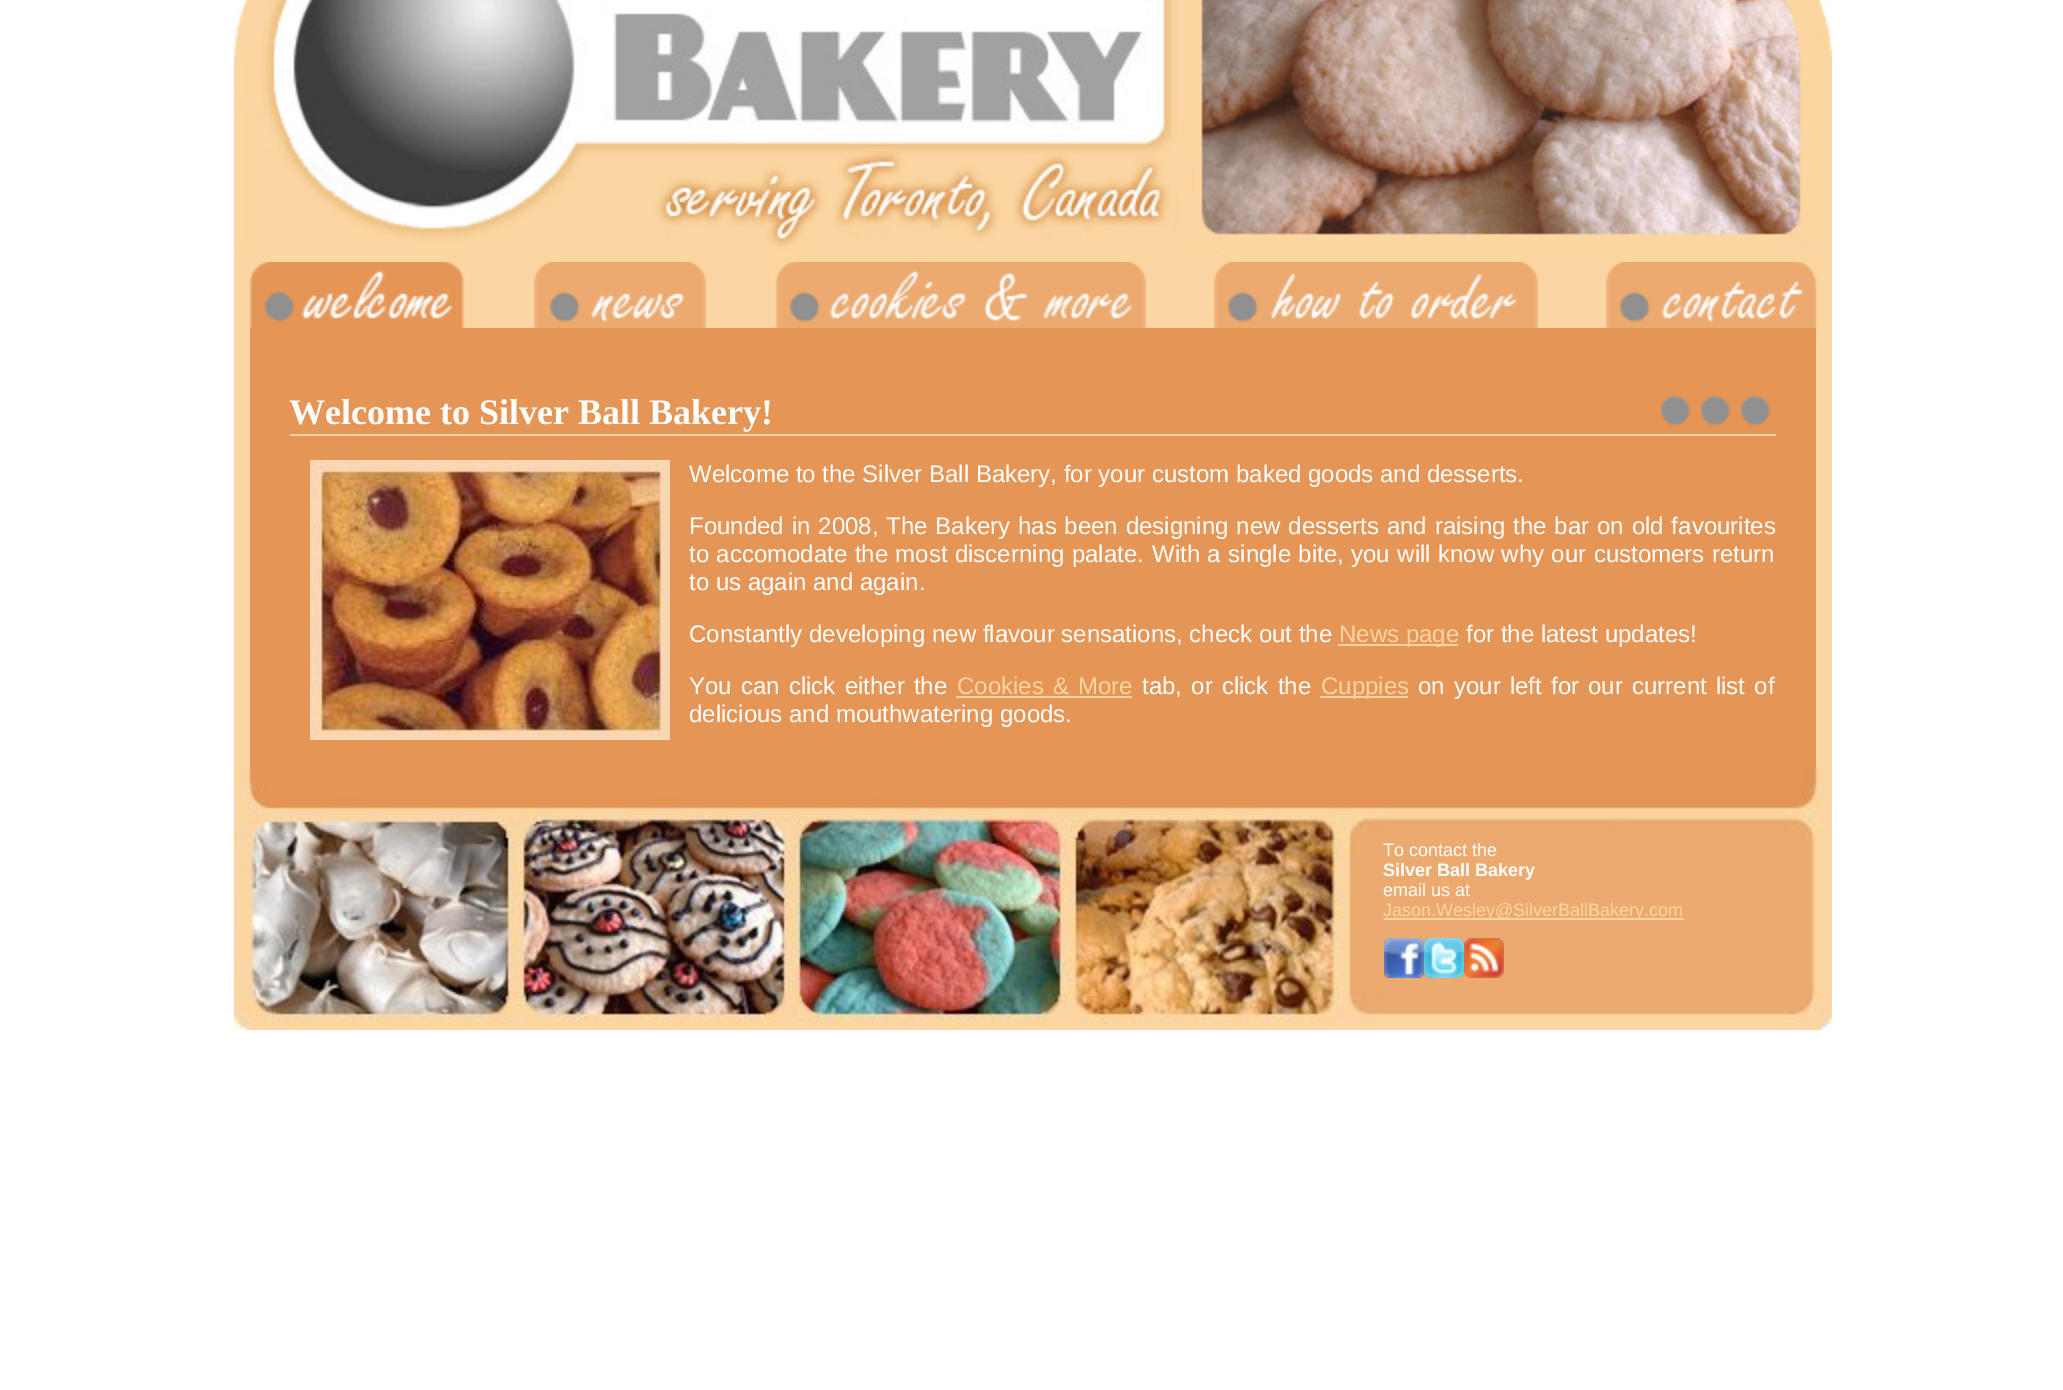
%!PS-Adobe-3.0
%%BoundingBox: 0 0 2063 1390
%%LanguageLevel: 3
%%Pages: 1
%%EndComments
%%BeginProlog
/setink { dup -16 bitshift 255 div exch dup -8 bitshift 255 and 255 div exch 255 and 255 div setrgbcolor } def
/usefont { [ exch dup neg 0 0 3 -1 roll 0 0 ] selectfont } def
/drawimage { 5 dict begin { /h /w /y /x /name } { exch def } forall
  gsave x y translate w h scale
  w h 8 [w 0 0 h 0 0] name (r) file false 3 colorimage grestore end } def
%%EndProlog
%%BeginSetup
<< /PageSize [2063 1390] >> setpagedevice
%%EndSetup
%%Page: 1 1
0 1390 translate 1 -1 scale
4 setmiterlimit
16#FFFFFF setink
0 0 2063 1390 rectfill
(img1.raw) 234 0 1598 262 drawimage
(img2.raw) 234 262 1598 66 drawimage
(img3.raw) 252 262 211 66 drawimage
[
    [250 328 1566 440 16#E59556]
    [1816 328 16 440 16#FBD6A2]
    [234 328 16 440 16#FBD6A2]
] { aload pop setink rectfill } forall
(img4.raw) 1659 395 113 32 drawimage
290 434 1486 2 rectfill
/LiberationSerif-Bold 36 usefont
16#FFFFFF setink
289 424 moveto (Welcome to Silver Ball Bakery!) show
(img5.raw) 310 460 360 280 drawimage
/LiberationSans-Regular 24 usefont
689 482 moveto (Welcome to the Silver Ball Bakery, for your custom baked goods and desserts.) show
689 534 moveto 1.2 0 32 (Founded in 2008, The Bakery has been designing new desserts and raising the bar on old favourites) widthshow
689 562 moveto 0.75 0 32 (to accomodate the most discerning palate.) widthshow
1152 562 moveto 0.75 0 32 (With a single bite, you will know why our customers return) widthshow
689 590 moveto (to us again and again.) show
689 642 moveto (Constantly developing new flavour sensations, check out the) show
16#FBD6A2 setink
1338 644 120 2 rectfill
1339 642 moveto (News page) show
16#FFFFFF setink
1466 642 moveto (for the latest updates!) show
689 694 moveto 2.5 0 32 (You can click either the) widthshow
16#FBD6A2 setink
957 694 moveto 2.5 0 32 (Cookies & More) widthshow
956 696 176 2 rectfill
16#FFFFFF setink
1142 694 moveto 2.5 0 32 (tab, or click the) widthshow
16#FBD6A2 setink
1320 696 88 2 rectfill
1321 694 moveto (Cuppies) show
16#FFFFFF setink
1418 694 moveto 2.5 0 32 (on your left for our current list of) widthshow
689 722 moveto (delicious and mouthwatering goods.) show
(img6.raw) 234 768 1598 262 drawimage
/LiberationSans-Regular 18 usefont
1383 856 moveto (To contact the) show
/LiberationSans-Bold 18 usefont
1383 876 moveto (Silver Ball Bakery) show
/LiberationSans-Regular 18 usefont
1383 896 moveto (email us at) show
16#FBD6A2 setink
1384 918 300 2 rectfill
1383 916 moveto (Jason.Wesley@SilverBallBakery.com) show
(img7.raw) 1384 938 40 40 drawimage
(img8.raw) 1424 938 40 40 drawimage
(img9.raw) 1464 938 40 40 drawimage
showpage
%%EOF
